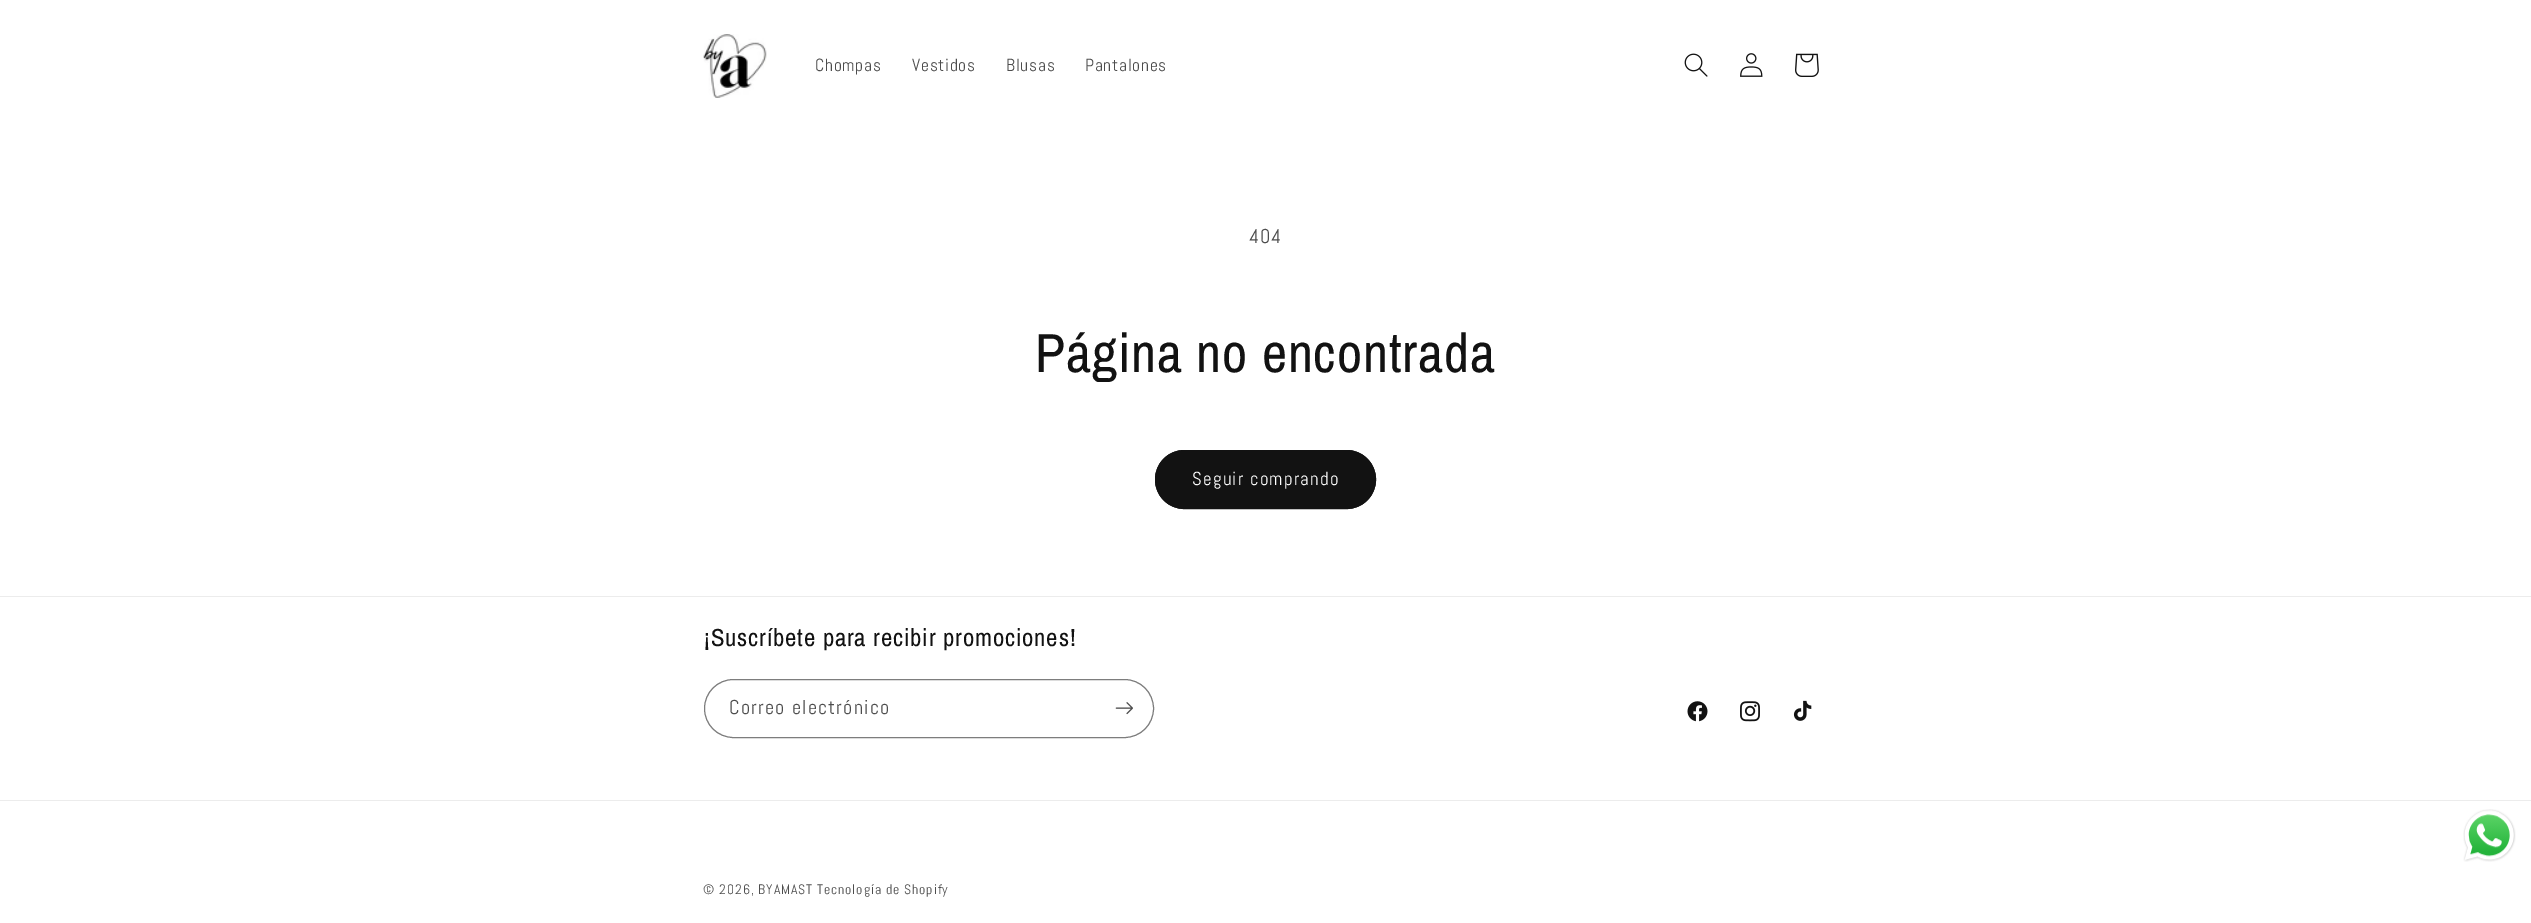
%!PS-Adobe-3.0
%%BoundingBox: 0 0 2531 923
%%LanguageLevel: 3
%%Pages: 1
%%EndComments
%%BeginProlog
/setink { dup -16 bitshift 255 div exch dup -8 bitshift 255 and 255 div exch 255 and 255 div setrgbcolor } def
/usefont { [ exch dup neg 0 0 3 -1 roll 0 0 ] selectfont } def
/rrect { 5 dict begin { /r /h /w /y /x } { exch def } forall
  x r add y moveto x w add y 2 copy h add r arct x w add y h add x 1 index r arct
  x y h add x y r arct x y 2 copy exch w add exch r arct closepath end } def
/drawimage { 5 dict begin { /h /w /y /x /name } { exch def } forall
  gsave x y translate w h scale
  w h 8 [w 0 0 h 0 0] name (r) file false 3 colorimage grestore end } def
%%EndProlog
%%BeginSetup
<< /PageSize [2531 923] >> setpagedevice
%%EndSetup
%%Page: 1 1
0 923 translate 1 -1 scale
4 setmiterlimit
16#FFFFFF setink
0 0 2531 923 rectfill
(img1.raw) 703 34 64 64 drawimage
/Abel-Regular 17.5 usefont
16#4D4D4D setink
815 71 moveto 0.75 0 (Chompas) ashow
912 71 moveto 0.75 0 (Vestidos) ashow
1006 71 moveto 0.75 0 (Blusas) ashow
1085 71 moveto 0.75 0 (Pantalones) ashow
(img2.raw) 1684 53 24 24 drawimage
(img3.raw) 1740 53 23 24 drawimage
(img4.raw) 1795 53 24 24 drawimage
/Abel-Regular 20 usefont
1249 243 moveto 0.75 0 (404) ashow
/ArchivoNarrow-Regular 55 usefont
16#121212 setink
1035 372 moveto 0.85 0 (Página no encontrada) ashow
1155 450 221 59 29.5 rrect fill
1155.5 450.5 220 58 29 rrect stroke
/Abel-Regular 18.75 usefont
16#FFFFFF setink
1192 485 moveto 1.25 0 (Seguir comprando) ashow
16#ECECEC setink
0 596 2531 1 rectfill
/ArchivoNarrow-Regular 24.75 usefont
16#121212 setink
703 646 moveto 0.85 0 (¡Suscríbete para recibir promociones!) ashow
16#7D7D7D setink
704.5 679.5 449 58 29 rrect stroke
/Abel-Regular 20 usefont
16#4D4D4D setink
729 714 moveto 1.25 0 (Correo electrónico) ashow
(img5.raw) 1115 702 18 13 drawimage
(img6.raw) 1687 701 21 21 drawimage
(img7.raw) 1740 701 20 21 drawimage
(img8.raw) 1793 700 19 21 drawimage
16#ECECEC setink
0 800 2531 1 rectfill
/Abel-Regular 13.75 usefont
16#4D4D4D setink
703 894 moveto 0.9 0 (© 2026, BYAMAST) ashow
817 894 moveto 0.9 0 (Tecnología de Shopify) ashow
(img9.raw) 2463 809 53 53 drawimage
showpage
%%EOF
